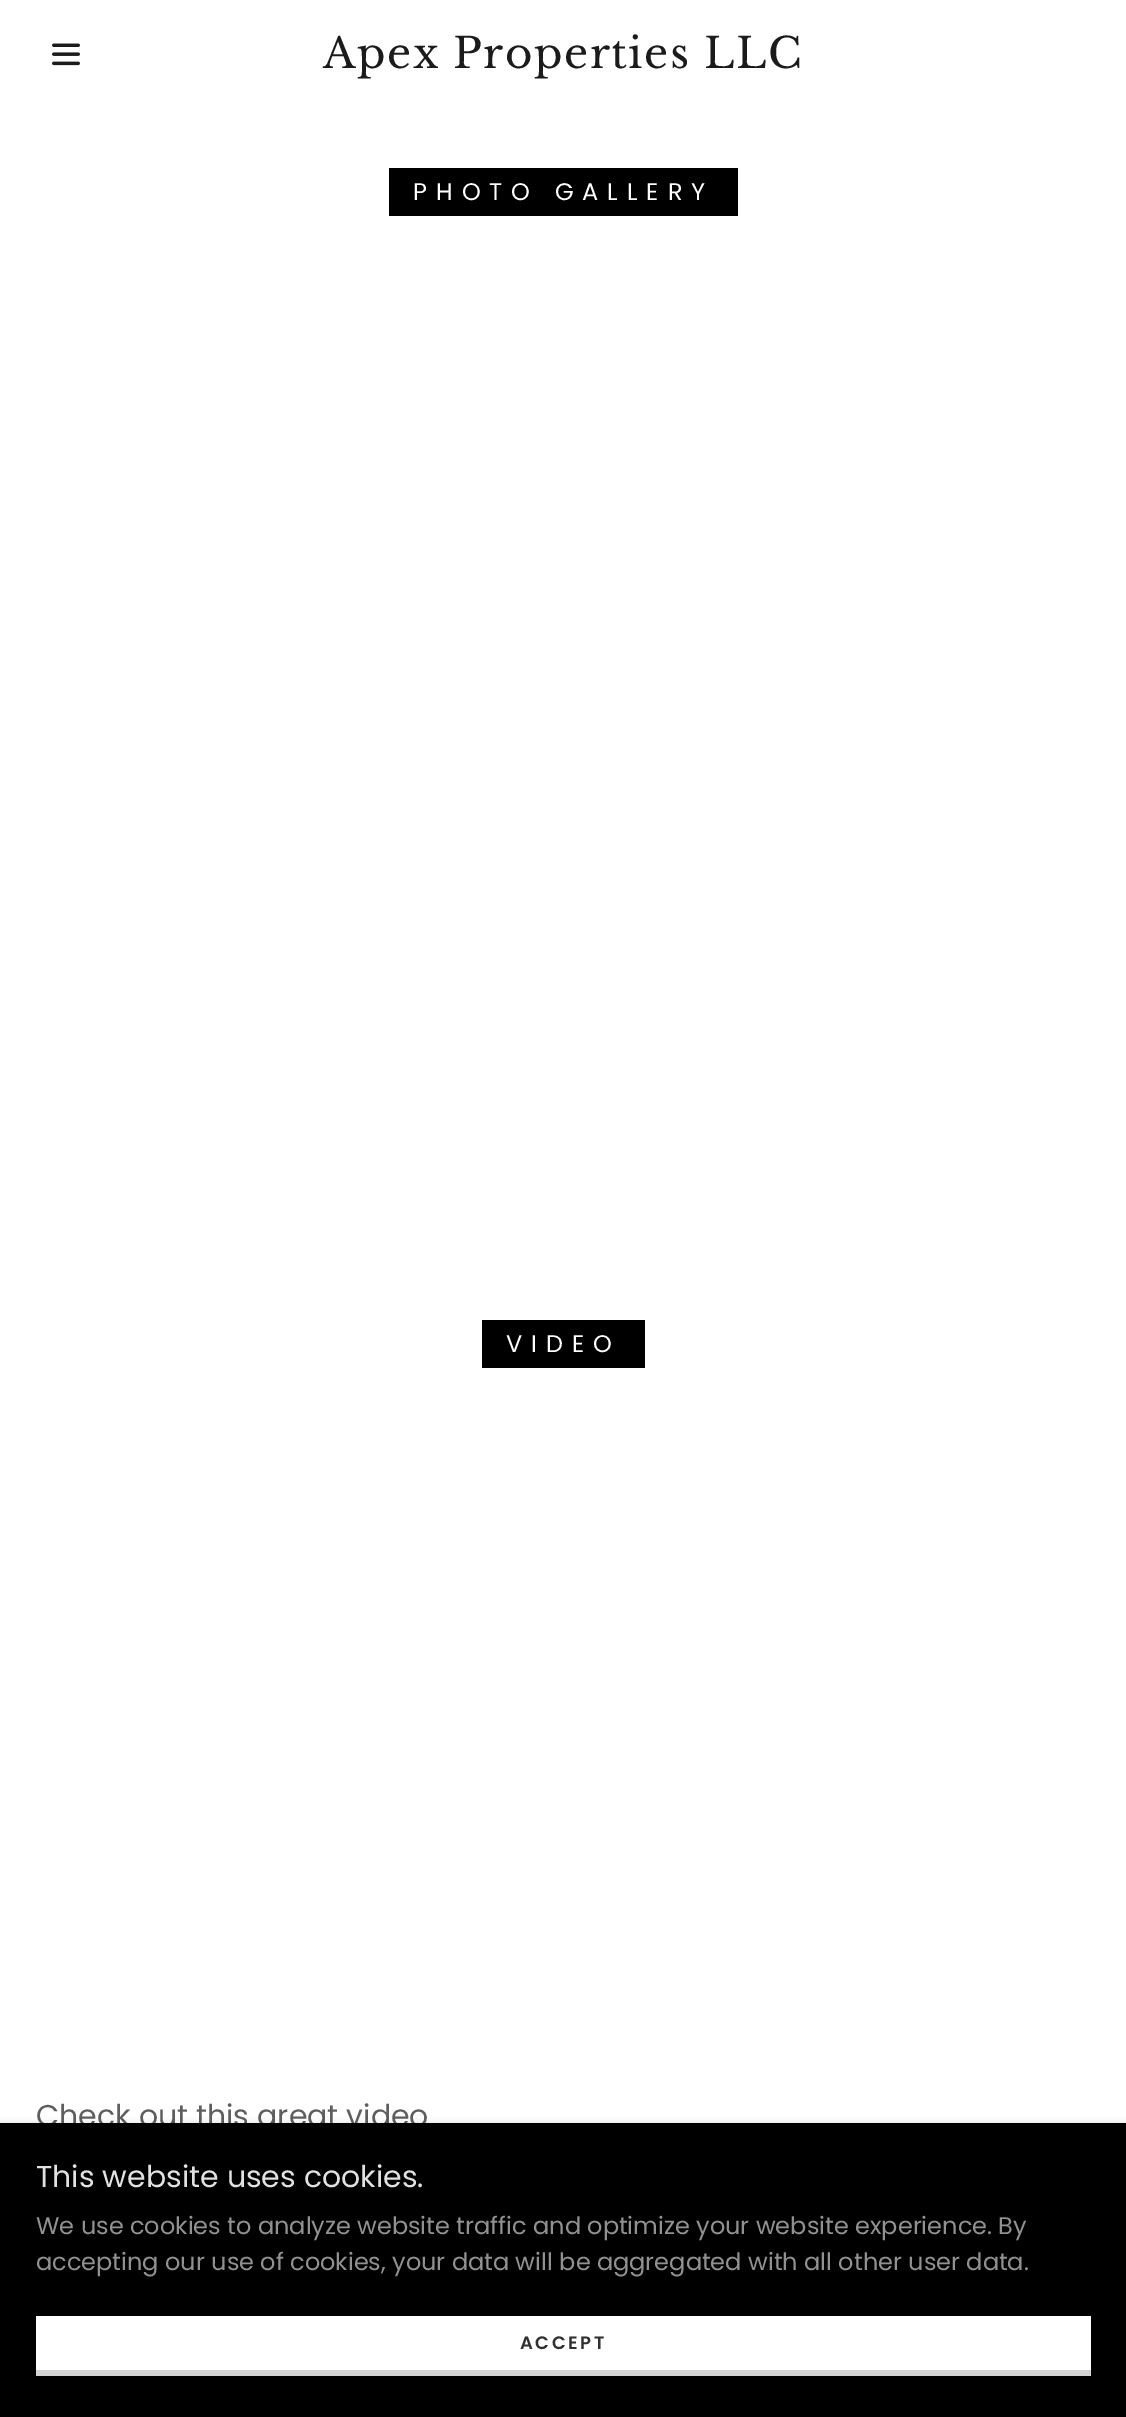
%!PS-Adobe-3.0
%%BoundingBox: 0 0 1126 2417
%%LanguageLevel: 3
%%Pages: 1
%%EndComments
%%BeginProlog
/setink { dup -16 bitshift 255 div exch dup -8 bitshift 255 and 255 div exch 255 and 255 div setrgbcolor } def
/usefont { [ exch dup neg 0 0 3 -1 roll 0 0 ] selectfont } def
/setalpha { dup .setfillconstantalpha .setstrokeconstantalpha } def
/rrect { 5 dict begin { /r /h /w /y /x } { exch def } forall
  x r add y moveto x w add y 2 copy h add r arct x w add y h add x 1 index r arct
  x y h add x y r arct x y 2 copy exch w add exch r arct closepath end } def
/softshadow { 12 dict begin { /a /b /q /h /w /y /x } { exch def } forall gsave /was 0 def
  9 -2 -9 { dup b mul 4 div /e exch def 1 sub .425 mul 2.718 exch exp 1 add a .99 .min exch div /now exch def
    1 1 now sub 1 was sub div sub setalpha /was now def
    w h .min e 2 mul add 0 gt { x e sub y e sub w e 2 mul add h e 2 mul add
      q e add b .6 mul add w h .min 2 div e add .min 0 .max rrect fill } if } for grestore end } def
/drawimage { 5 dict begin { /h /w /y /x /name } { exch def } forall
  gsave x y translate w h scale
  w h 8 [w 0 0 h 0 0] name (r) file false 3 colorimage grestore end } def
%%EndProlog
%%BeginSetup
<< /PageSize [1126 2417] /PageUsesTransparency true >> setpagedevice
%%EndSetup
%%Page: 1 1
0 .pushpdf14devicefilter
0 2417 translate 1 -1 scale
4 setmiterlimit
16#FFFFFF setink
0 0 1126 2417 rectfill
(img1.raw) 52 43 28 23 drawimage
/LibreBaskerville-Regular 42 usefont
16#1B1B1B setink
323 68 moveto 1.5 0 (Apex Properties LLC) ashow
16#000000 setink
389 168 349 48 rectfill
/Poppins-Regular 24 usefont
16#FFFFFF setink
413 200 moveto 9 0 (PHOTO GALLERY) ashow
16#000000 setink
482 1320 163 48 rectfill
16#FFFFFF setink
506 1352 moveto 9 0 (VIDEO) ashow
/Poppins-Regular 30 usefont
16#5E5E5E setink
36 2126 moveto (Check out this great video) show
16#000000 setink
0 2126 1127 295 0 4.5 0.3 softshadow
0 2123 1126 294 rectfill
16#E2E2E2 setink
36 2187 moveto (This website uses cookies.) show
/Poppins-Regular 24 usefont
16#919191 setink
36 2234 moveto (We use cookies to analyze website traffic and optimize your website experience. By) show
36 2270 moveto (accepting our use of cookies, your data will be aggregated with all other user data.) show
16#FFFFFF setink
36 2316 1055 54 rectfill
16#D4D4D4 setink
36 2370 1055 6 rectfill
/Poppins-SemiBold 18 usefont
16#303030 setink
520 2349 moveto 2.5 0 (ACCEPT) ashow
.poppdf14devicefilter showpage
%%EOF
